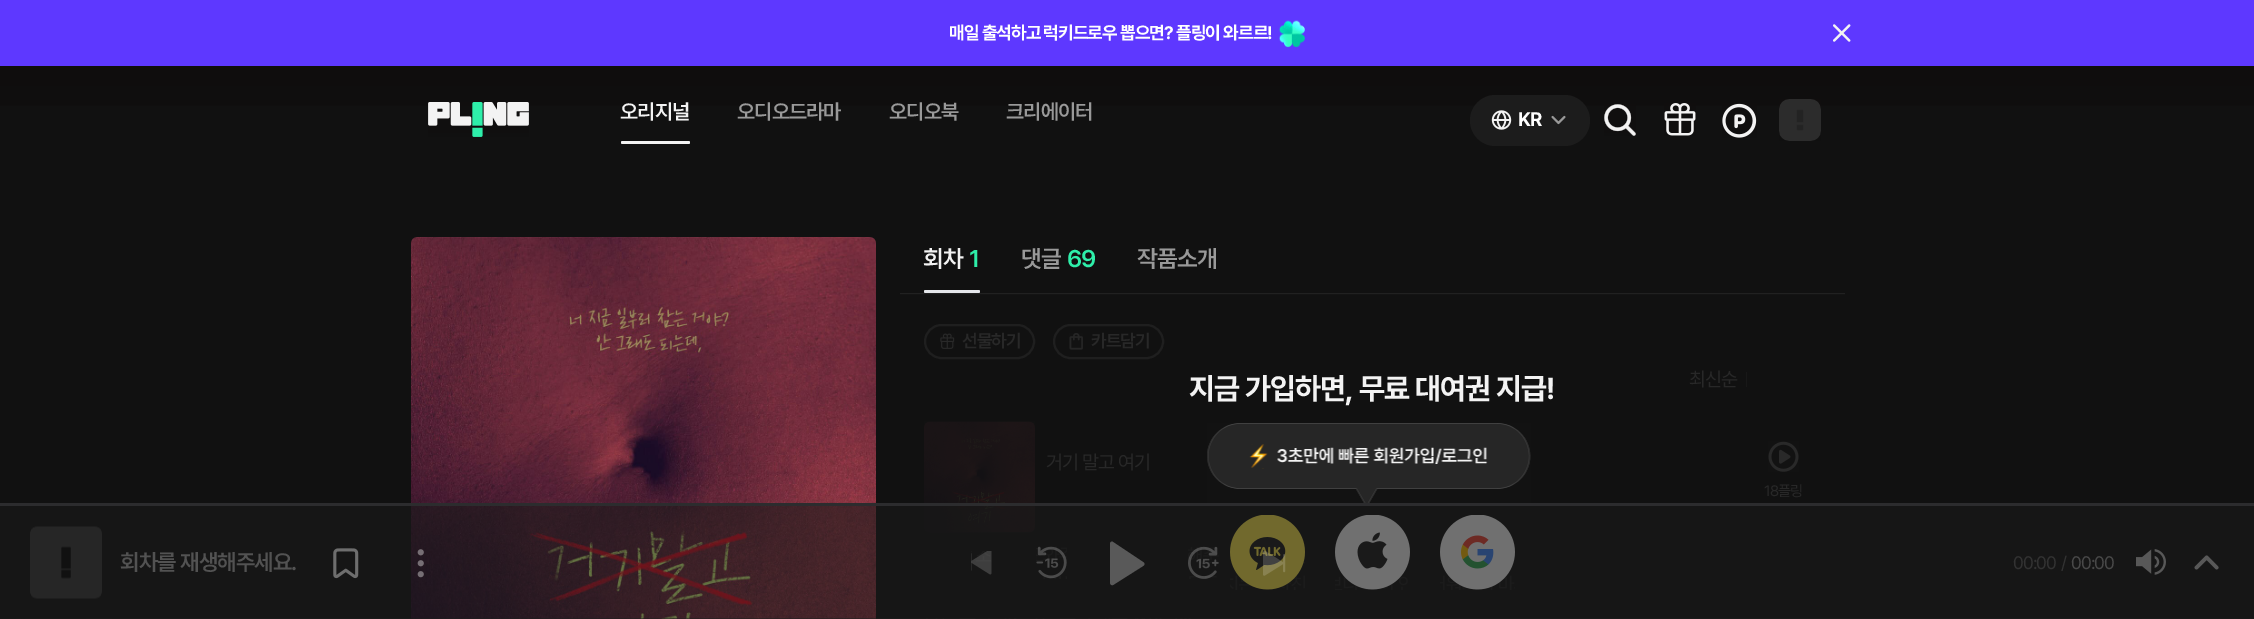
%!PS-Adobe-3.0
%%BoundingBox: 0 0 2254 619
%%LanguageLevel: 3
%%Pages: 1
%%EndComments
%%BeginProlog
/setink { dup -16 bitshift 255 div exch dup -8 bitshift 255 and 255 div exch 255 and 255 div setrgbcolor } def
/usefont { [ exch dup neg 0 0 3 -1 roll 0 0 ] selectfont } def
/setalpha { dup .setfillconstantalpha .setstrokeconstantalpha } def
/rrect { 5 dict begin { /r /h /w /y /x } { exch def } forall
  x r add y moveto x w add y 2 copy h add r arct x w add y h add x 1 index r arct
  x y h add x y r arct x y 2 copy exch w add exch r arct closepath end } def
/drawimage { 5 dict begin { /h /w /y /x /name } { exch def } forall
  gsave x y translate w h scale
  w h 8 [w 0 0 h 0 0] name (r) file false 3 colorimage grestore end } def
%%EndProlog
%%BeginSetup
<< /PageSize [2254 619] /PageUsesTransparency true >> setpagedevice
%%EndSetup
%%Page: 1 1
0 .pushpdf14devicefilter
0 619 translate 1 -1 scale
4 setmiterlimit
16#111111 setink
0 0 2254 619 rectfill
16#5E38FF setink
0 0 2254 66 rectfill
/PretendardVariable-Bold 18 usefont
16#FFFFFF setink
949 39 moveto -0.9 0 (매일 출석하고 럭키드로우 뽑으면? 플링이 와르르!) ashow
(img1.raw) 1279 20 26 28 drawimage
(img2.raw) 1833 24 18 18 drawimage
gsave 0 66 moveto 2254 66 lineto 2254 106 lineto 0 106 lineto closepath clip newpath
<< /ShadingType 2 /ColorSpace /DeviceRGB /Coords [1127 66 1127 174] /Extend [true true] /Function << /FunctionType 2 /Domain [0 1] /C0 [0.059 0.051 0.051] /C1 [0.067 0.067 0.067] /N 1 >> >> shfill grestore
(img3.raw) 428 102 101 35 drawimage
/PretendardVariable-SemiBold 21 usefont
16#F3F3F3 setink
620 119 moveto -0.9 0 (오리지널) ashow
621 141 69 3 1.5 rrect fill
16#999999 setink
737 119 moveto -0.9 0 (오디오드라마) ashow
889 119 moveto -0.9 0 (오디오북) ashow
1006 119 moveto -0.9 0 (크리에이터) ashow
16#1C1C1C setink
1470 95 120 51 25.5 rrect fill
(img4.raw) 1491 110 21 20 drawimage
/PretendardVariable-Bold 19.5 usefont
16#FFFFFF setink
1518 126 moveto -0.9 0 (KR) ashow
(img5.raw) 1551 115 15 10 drawimage
(img6.raw) 1604 104 32 32 drawimage
(img7.raw) 1664 103 32 33 drawimage
(img8.raw) 1722 103 35 35 drawimage
(img9.raw) 1779 99 42 42 drawimage
(img10.raw) 411 237 465 382 drawimage
16#212121 setink
900 293 945 1 rectfill
16#141414 setink
900 294 945 1 rectfill
/PretendardVariable-SemiBold 24 usefont
16#F3F3F3 setink
923 267 moveto -0.9 0 (회차) ashow
16#2EEFAA setink
969 267 moveto -0.9 0 (1) ashow
16#E5E7EB setink
924 290 56 3 1.5 rrect fill
16#999999 setink
1021 267 moveto -0.9 0 (댓글) ashow
16#2EEFAA setink
1067 267 moveto -0.9 0 (69) ashow
16#999999 setink
1137 267 moveto -0.9 0 (작품소개) ashow
16#1F1F1F setink
2 setlinewidth
925 325 109 33 16.5 rrect stroke
(img11.raw) 940 333 15 16 drawimage
/PretendardVariable-SemiBold 18 usefont
16#282828 setink
962 347 moveto -0.9 0 (선물하기) ashow
16#1F1F1F setink
1054 325 109 33 16.5 rrect stroke
(img12.raw) 1069 333 14 17 drawimage
16#282828 setink
1091 347 moveto -0.9 0 (카트담기) ashow
/PretendardVariable-Regular 19.5 usefont
1689 386 moveto -0.9 0 (최신순) ashow
16#181818 setink
1746 372 1 15 rectfill
(img13.raw) 924 421 111 112 drawimage
16#282828 setink
1046 469 moveto -0.9 0 (거기 말고 여기) ashow
(img14.raw) 1768 441 31 31 drawimage
/PretendardVariable-Regular 15 usefont
1764 496 moveto -0.9 0 (18플링) ashow
/PretendardVariable-Bold 30 usefont
16#F3F3F3 setink
1189 399 moveto -0.9 0 (지금 가입하면, 무료 대여권 지급!) ashow
(img15.raw) 1207 423 324 80 drawimage
(img16.raw) 1230 515 75 75 drawimage
(img17.raw) 1335 515 75 75 drawimage
(img18.raw) 1440 515 75 75 drawimage
16#2C2C2E setink
0 503 2254 3 rectfill
(img28.raw) 0 618 2254 1 drawimage
0.6 setalpha
16#191919 setink
0 506 2254 113 rectfill
1 setalpha
(img19.raw) 30 526 72 73 drawimage
/PretendardVariable-SemiBold 22.5 usefont
16#525252 setink
120 570 moveto -0.9 0 (회차를 재생해주세요.) ashow
(img20.raw) 333 548 26 31 drawimage
(img21.raw) 417 549 7 29 drawimage
(img22.raw) 971 551 21 24 drawimage
(img23.raw) 1036 546 31 33 drawimage
0.3 setalpha
16#F3F3F3 setink
1110 544 moveto 1110 542 1112 541 1113 542 curveto 1143 562 lineto 1145 563 1145 565 1143 566 curveto 1113 585 lineto 1112 586 1110 584 1110 583 curveto closepath eofill
1 setalpha
(img24.raw) 1188 546 31 33 drawimage
(img25.raw) 1263 551 23 25 drawimage
/PretendardVariable-Regular 18 usefont
16#323232 setink
2013 569 moveto -0.9 0 (00:00) ashow
2061 569 moveto -0.9 0 (/) ashow
16#484848 setink
2071 569 moveto -0.9 0 (00:00) ashow
(img26.raw) 2136 549 30 26 drawimage
(img27.raw) 2194 555 25 15 drawimage
.poppdf14devicefilter showpage
%%EOF
